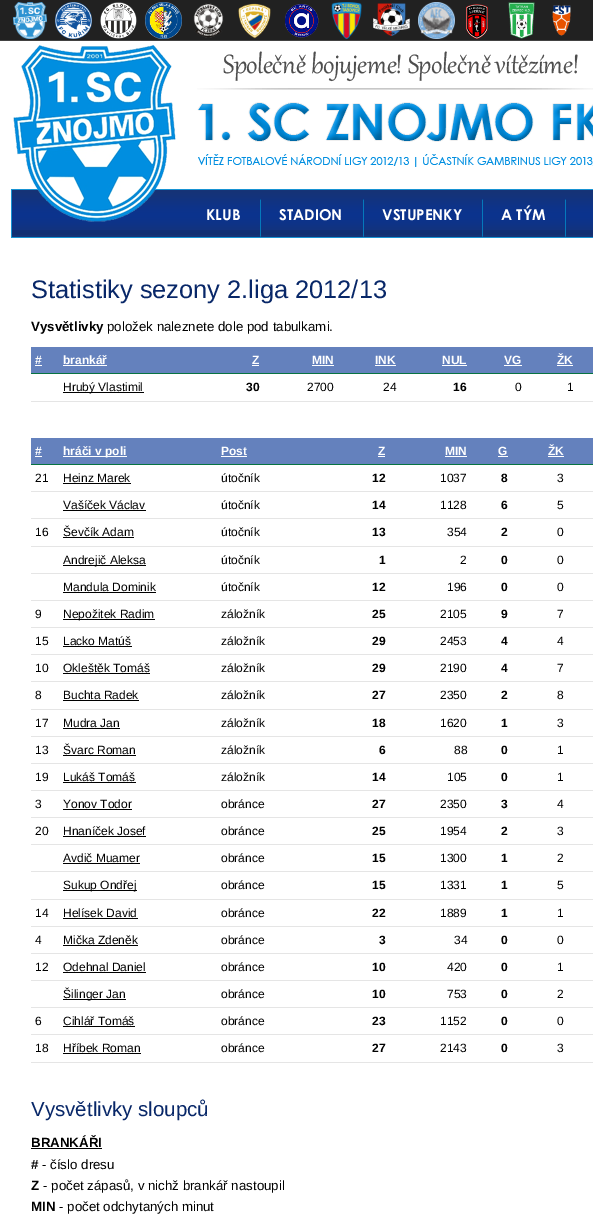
%!PS-Adobe-3.0
%%BoundingBox: 0 0 593 1224
%%LanguageLevel: 3
%%Pages: 1
%%EndComments
%%BeginProlog
/setink { dup -16 bitshift 255 div exch dup -8 bitshift 255 and 255 div exch 255 and 255 div setrgbcolor } def
/usefont { [ exch dup neg 0 0 3 -1 roll 0 0 ] selectfont } def
/drawimage { 5 dict begin { /h /w /y /x /name } { exch def } forall
  gsave x y translate w h scale
  w h 8 [w 0 0 h 0 0] name (r) file false 3 colorimage grestore end } def
%%EndProlog
%%BeginSetup
<< /PageSize [593 1224] >> setpagedevice
%%EndSetup
%%Page: 1 1
0 1224 translate 1 -1 scale
4 setmiterlimit
16#FFFFFF setink
0 0 593 1224 rectfill
16#212121 setink
0 0 593 40 rectfill
16#424242 setink
0 40 593 1 rectfill
(img1.raw) 13 2 34 37 drawimage
(img2.raw) 55 2 37 37 drawimage
(img3.raw) 100 2 37 37 drawimage
(img4.raw) 145 2 37 37 drawimage
(img5.raw) 193 3 31 35 drawimage
(img6.raw) 238 3 33 36 drawimage
(img7.raw) 285 4 34 34 drawimage
(img8.raw) 331 2 31 37 drawimage
(img9.raw) 373 3 37 33 drawimage
(img10.raw) 418 2 37 37 drawimage
(img11.raw) 466 4 22 35 drawimage
(img12.raw) 508 2 27 37 drawimage
(img13.raw) 552 5 19 31 drawimage
(img14.raw) 197 42 396 125 drawimage
(img16.raw) 12 189 581 49 drawimage
(img15.raw) 13 45 163 177 drawimage
16#1893D3 setink
11 189 1 49 rectfill
/CenturyGothic-Bold 15 usefont
16#FFFFFF setink
206 220 moveto (KLUB) show
(img17.raw) 260 199 1 38 drawimage
279 220 moveto (STADION) show
(img17.raw) 363 199 1 38 drawimage
382 220 moveto (VSTUPENKY) show
(img17.raw) 482 199 1 38 drawimage
501 220 moveto (A TÝM) show
(img17.raw) 565 199 1 38 drawimage
/LiberationSans-Regular 25.4 usefont
16#082768 setink
31 298 moveto (Statistiky sezony 2.liga 2012/13) show
/LiberationSans-Bold 13.3 usefont
16#000000 setink
31 331 moveto (Vysvětlivky) show
/LiberationSans-Regular 13.3 usefont
107 331 moveto (položek naleznete dole pod tabulkami.) show
16#6481BD setink
31 347 562 26 rectfill
16#077341 setink
31 373 562 1 rectfill
/LiberationSans-Bold 12 usefont
16#FFFFFF setink
35 364 moveto (#) show
35 365 7 1 rectfill
63 364 moveto (brankář) show
63 365 44 1 rectfill
252 364 moveto (Z) show
252 365 7 1 rectfill
312 364 moveto (MIN) show
312 365 22 1 rectfill
375 364 moveto (INK) show
375 365 21 1 rectfill
442 364 moveto (NUL) show
442 365 25 1 rectfill
504 364 moveto (VG) show
504 365 18 1 rectfill
557 364 moveto (ŽK) show
557 365 16 1 rectfill
16#000000 setink
63 392 81 1 rectfill
/LiberationSans-Regular 12 usefont
63 391 moveto (Hrubý Vlastimil) show
/LiberationSans-Bold 12 usefont
246 391 moveto (30) show
/LiberationSans-Regular 12 usefont
307 391 moveto (2700) show
383 391 moveto (24) show
/LiberationSans-Bold 12 usefont
453 391 moveto (16) show
/LiberationSans-Regular 12 usefont
515 391 moveto (0) show
567 391 moveto (1) show
[
    [31 401 562 1 16#E5E5E5]
    [31 438 562 26 16#6481BD]
    [31 464 562 1 16#077341]
] { aload pop setink rectfill } forall
/LiberationSans-Bold 12 usefont
16#FFFFFF setink
35 455 moveto (#) show
35 456 7 1 rectfill
63 456 64 1 rectfill
63 455 moveto (hráči v poli) show
221 455 moveto (Post) show
221 456 26 1 rectfill
378 455 moveto (Z) show
378 456 7 1 rectfill
445 455 moveto (MIN) show
445 456 22 1 rectfill
498 455 moveto (G) show
498 456 10 1 rectfill
548 455 moveto (ŽK) show
548 456 16 1 rectfill
16#E5E5E5 setink
31 491 562 1 rectfill
/LiberationSans-Regular 12 usefont
16#000000 setink
35 482 moveto (21) show
63 482 moveto (Heinz Marek) show
63 483 68 1 rectfill
221 482 moveto (útočník) show
/LiberationSans-Bold 12 usefont
372 482 moveto (12) show
/LiberationSans-Regular 12 usefont
440 482 moveto (1037) show
/LiberationSans-Bold 12 usefont
501 482 moveto (8) show
/LiberationSans-Regular 12 usefont
557 482 moveto (3) show
63 509 moveto (Vašíček Václav) show
63 510 83 1 rectfill
221 509 moveto (útočník) show
/LiberationSans-Bold 12 usefont
372 509 moveto (14) show
/LiberationSans-Regular 12 usefont
440 509 moveto (1128) show
/LiberationSans-Bold 12 usefont
501 509 moveto (6) show
/LiberationSans-Regular 12 usefont
557 509 moveto (5) show
16#E5E5E5 setink
31 518 562 1 rectfill
31 546 562 1 rectfill
16#000000 setink
35 536 moveto (16) show
63 536 moveto (Ševčík Adam) show
63 537 71 1 rectfill
221 536 moveto (útočník) show
/LiberationSans-Bold 12 usefont
372 536 moveto (13) show
/LiberationSans-Regular 12 usefont
447 536 moveto (354) show
/LiberationSans-Bold 12 usefont
501 536 moveto (2) show
/LiberationSans-Regular 12 usefont
557 536 moveto (0) show
63 565 83 1 rectfill
63 564 moveto (Andrejič Aleksa) show
221 564 moveto (útočník) show
/LiberationSans-Bold 12 usefont
379 564 moveto (1) show
/LiberationSans-Regular 12 usefont
460 564 moveto (2) show
/LiberationSans-Bold 12 usefont
501 564 moveto (0) show
/LiberationSans-Regular 12 usefont
557 564 moveto (0) show
16#E5E5E5 setink
31 573 562 1 rectfill
16#000000 setink
63 591 moveto (Mandula Dominik) show
63 592 93 1 rectfill
221 591 moveto (útočník) show
/LiberationSans-Bold 12 usefont
372 591 moveto (12) show
/LiberationSans-Regular 12 usefont
447 591 moveto (196) show
/LiberationSans-Bold 12 usefont
501 591 moveto (0) show
/LiberationSans-Regular 12 usefont
557 591 moveto (0) show
16#E5E5E5 setink
31 600 562 1 rectfill
31 627 562 1 rectfill
16#000000 setink
35 618 moveto (9) show
63 619 92 1 rectfill
63 618 moveto (Nepožitek Radim) show
221 618 moveto (záložník) show
/LiberationSans-Bold 12 usefont
372 618 moveto (25) show
/LiberationSans-Regular 12 usefont
440 618 moveto (2105) show
/LiberationSans-Bold 12 usefont
501 618 moveto (9) show
/LiberationSans-Regular 12 usefont
557 618 moveto (7) show
16#E5E5E5 setink
31 654 562 1 rectfill
16#000000 setink
35 645 moveto (15) show
63 645 moveto (Lacko Matúš) show
63 646 69 1 rectfill
221 645 moveto (záložník) show
/LiberationSans-Bold 12 usefont
372 645 moveto (29) show
/LiberationSans-Regular 12 usefont
440 645 moveto (2453) show
/LiberationSans-Bold 12 usefont
501 645 moveto (4) show
/LiberationSans-Regular 12 usefont
557 645 moveto (4) show
16#E5E5E5 setink
31 681 562 1 rectfill
16#000000 setink
35 672 moveto (10) show
63 672 moveto (Okleštěk Tomáš) show
63 673 87 1 rectfill
221 672 moveto (záložník) show
/LiberationSans-Bold 12 usefont
372 672 moveto (29) show
/LiberationSans-Regular 12 usefont
440 672 moveto (2190) show
/LiberationSans-Bold 12 usefont
501 672 moveto (4) show
/LiberationSans-Regular 12 usefont
557 672 moveto (7) show
16#E5E5E5 setink
31 709 562 1 rectfill
16#000000 setink
35 699 moveto (8) show
63 699 moveto (Buchta Radek) show
63 700 76 1 rectfill
221 699 moveto (záložník) show
/LiberationSans-Bold 12 usefont
372 699 moveto (27) show
/LiberationSans-Regular 12 usefont
440 699 moveto (2350) show
/LiberationSans-Bold 12 usefont
501 699 moveto (2) show
/LiberationSans-Regular 12 usefont
557 699 moveto (8) show
16#E5E5E5 setink
31 736 562 1 rectfill
16#000000 setink
35 727 moveto (17) show
63 727 moveto (Mudra Jan) show
63 728 57 1 rectfill
221 727 moveto (záložník) show
/LiberationSans-Bold 12 usefont
372 727 moveto (18) show
/LiberationSans-Regular 12 usefont
440 727 moveto (1620) show
/LiberationSans-Bold 12 usefont
501 727 moveto (1) show
/LiberationSans-Regular 12 usefont
557 727 moveto (3) show
16#E5E5E5 setink
31 763 562 1 rectfill
16#000000 setink
35 754 moveto (13) show
63 754 moveto (Švarc Roman) show
63 755 73 1 rectfill
221 754 moveto (záložník) show
/LiberationSans-Bold 12 usefont
379 754 moveto (6) show
/LiberationSans-Regular 12 usefont
454 754 moveto (88) show
/LiberationSans-Bold 12 usefont
501 754 moveto (0) show
/LiberationSans-Regular 12 usefont
557 754 moveto (1) show
16#E5E5E5 setink
31 790 562 1 rectfill
16#000000 setink
35 781 moveto (19) show
63 781 moveto (Lukáš Tomáš) show
63 782 73 1 rectfill
221 781 moveto (záložník) show
/LiberationSans-Bold 12 usefont
372 781 moveto (14) show
/LiberationSans-Regular 12 usefont
447 781 moveto (105) show
/LiberationSans-Bold 12 usefont
501 781 moveto (0) show
/LiberationSans-Regular 12 usefont
557 781 moveto (1) show
16#E5E5E5 setink
31 817 562 1 rectfill
16#000000 setink
35 808 moveto (3) show
63 808 moveto (Yonov Todor) show
63 809 69 1 rectfill
221 808 moveto (obránce) show
/LiberationSans-Bold 12 usefont
372 808 moveto (27) show
/LiberationSans-Regular 12 usefont
440 808 moveto (2350) show
/LiberationSans-Bold 12 usefont
501 808 moveto (3) show
/LiberationSans-Regular 12 usefont
557 808 moveto (4) show
16#E5E5E5 setink
31 844 562 1 rectfill
16#000000 setink
35 835 moveto (20) show
63 835 moveto (Hnaníček Josef) show
63 836 83 1 rectfill
221 835 moveto (obránce) show
/LiberationSans-Bold 12 usefont
372 835 moveto (25) show
/LiberationSans-Regular 12 usefont
440 835 moveto (1954) show
/LiberationSans-Bold 12 usefont
501 835 moveto (2) show
/LiberationSans-Regular 12 usefont
557 835 moveto (3) show
63 862 moveto (Avdič Muamer) show
63 863 77 1 rectfill
221 862 moveto (obránce) show
/LiberationSans-Bold 12 usefont
372 862 moveto (15) show
/LiberationSans-Regular 12 usefont
440 862 moveto (1300) show
/LiberationSans-Bold 12 usefont
501 862 moveto (1) show
/LiberationSans-Regular 12 usefont
557 862 moveto (2) show
16#E5E5E5 setink
31 871 562 1 rectfill
16#000000 setink
63 890 74 1 rectfill
63 889 moveto (Sukup Ondřej) show
221 889 moveto (obránce) show
/LiberationSans-Bold 12 usefont
372 889 moveto (15) show
/LiberationSans-Regular 12 usefont
440 889 moveto (1331) show
/LiberationSans-Bold 12 usefont
501 889 moveto (1) show
/LiberationSans-Regular 12 usefont
557 889 moveto (5) show
16#E5E5E5 setink
31 899 562 1 rectfill
31 926 562 1 rectfill
16#000000 setink
35 917 moveto (14) show
63 917 moveto (Helísek David) show
63 918 75 1 rectfill
221 917 moveto (obránce) show
/LiberationSans-Bold 12 usefont
372 917 moveto (22) show
/LiberationSans-Regular 12 usefont
440 917 moveto (1889) show
/LiberationSans-Bold 12 usefont
501 917 moveto (1) show
/LiberationSans-Regular 12 usefont
557 917 moveto (1) show
16#E5E5E5 setink
31 953 562 1 rectfill
16#000000 setink
35 944 moveto (4) show
63 944 moveto (Mička Zdeněk) show
63 945 75 1 rectfill
221 944 moveto (obránce) show
/LiberationSans-Bold 12 usefont
379 944 moveto (3) show
/LiberationSans-Regular 12 usefont
454 944 moveto (34) show
/LiberationSans-Bold 12 usefont
501 944 moveto (0) show
/LiberationSans-Regular 12 usefont
557 944 moveto (0) show
16#E5E5E5 setink
31 980 562 1 rectfill
16#000000 setink
35 971 moveto (12) show
63 971 moveto (Odehnal Daniel) show
63 972 83 1 rectfill
221 971 moveto (obránce) show
/LiberationSans-Bold 12 usefont
372 971 moveto (10) show
/LiberationSans-Regular 12 usefont
447 971 moveto (420) show
/LiberationSans-Bold 12 usefont
501 971 moveto (0) show
/LiberationSans-Regular 12 usefont
557 971 moveto (1) show
63 999 63 1 rectfill
63 998 moveto (Šilinger Jan) show
221 998 moveto (obránce) show
/LiberationSans-Bold 12 usefont
372 998 moveto (10) show
/LiberationSans-Regular 12 usefont
447 998 moveto (753) show
/LiberationSans-Bold 12 usefont
501 998 moveto (0) show
/LiberationSans-Regular 12 usefont
557 998 moveto (2) show
16#E5E5E5 setink
31 1007 562 1 rectfill
31 1034 562 1 rectfill
16#000000 setink
35 1025 moveto (6) show
63 1025 moveto (Cihlář Tomáš) show
63 1026 72 1 rectfill
221 1025 moveto (obránce) show
/LiberationSans-Bold 12 usefont
372 1025 moveto (23) show
/LiberationSans-Regular 12 usefont
440 1025 moveto (1152) show
/LiberationSans-Bold 12 usefont
501 1025 moveto (0) show
/LiberationSans-Regular 12 usefont
557 1025 moveto (0) show
16#E5E5E5 setink
31 1062 562 1 rectfill
16#000000 setink
35 1052 moveto (18) show
63 1052 moveto (Hříbek Roman) show
63 1053 78 1 rectfill
221 1052 moveto (obránce) show
/LiberationSans-Bold 12 usefont
372 1052 moveto (27) show
/LiberationSans-Regular 12 usefont
440 1052 moveto (2143) show
/LiberationSans-Bold 12 usefont
501 1052 moveto (0) show
/LiberationSans-Regular 12 usefont
557 1052 moveto (3) show
/LiberationSans-Regular 20.5 usefont
16#082768 setink
31 1116 moveto (Vysvětlivky sloupců) show
/LiberationSans-Bold 13.3 usefont
16#000000 setink
31 1147 moveto (BRANKÁŘI) show
31 1148 71 1 rectfill
31 1169 moveto (#) show
/LiberationSans-Regular 13.3 usefont
42 1169 moveto (- číslo dresu) show
/LiberationSans-Bold 13.3 usefont
31 1190 moveto (Z) show
/LiberationSans-Regular 13.3 usefont
43 1190 moveto (- počet zápasů, v nichž brankář nastoupil) show
/LiberationSans-Bold 13.3 usefont
31 1211 moveto (MIN) show
/LiberationSans-Regular 13.3 usefont
59 1211 moveto (- počet odchytaných minut) show
showpage
%%EOF
